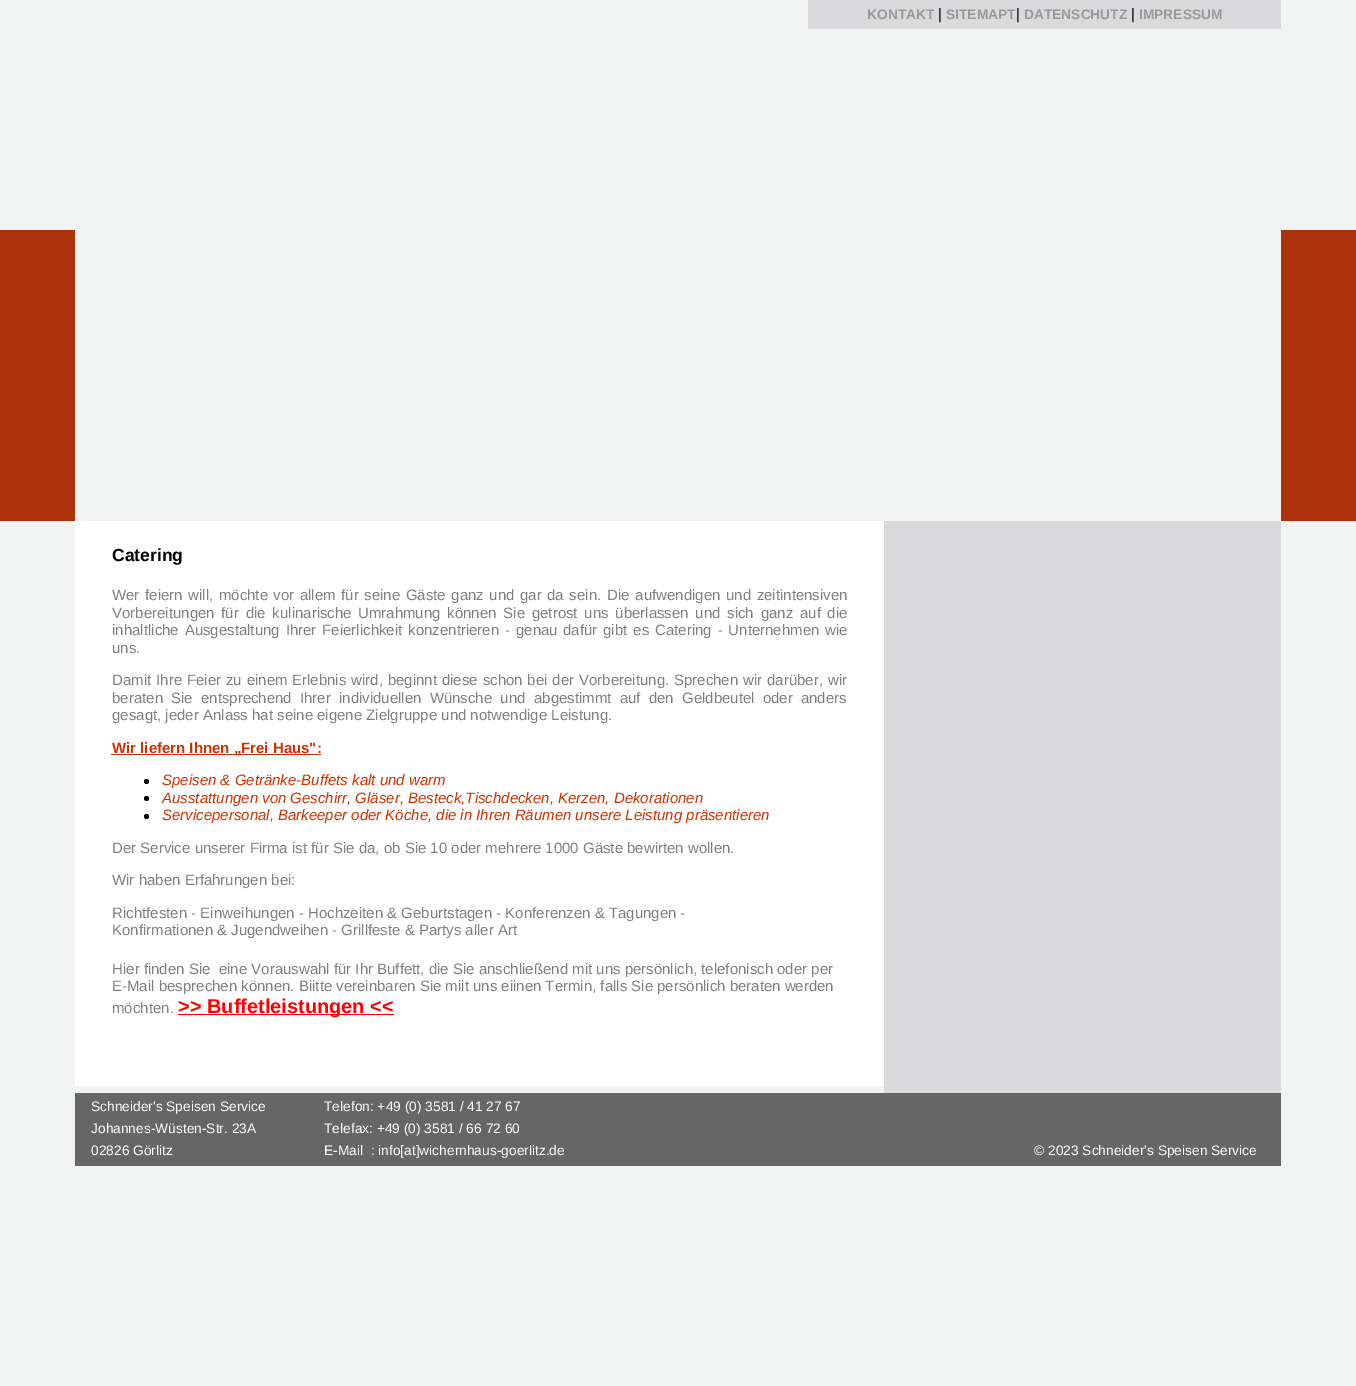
%!PS-Adobe-3.0
%%BoundingBox: 0 0 1356 1386
%%LanguageLevel: 3
%%Pages: 1
%%EndComments
%%BeginProlog
/setink { dup -16 bitshift 255 div exch dup -8 bitshift 255 and 255 div exch 255 and 255 div setrgbcolor } def
/usefont { [ exch dup neg 0 0 3 -1 roll 0 0 ] selectfont } def
/disc { newpath 0 360 arc closepath } def
%%EndProlog
%%BeginSetup
<< /PageSize [1356 1386] >> setpagedevice
%%EndSetup
%%Page: 1 1
0 1386 translate 1 -1 scale
4 setmiterlimit
16#F2F4F3 setink
0 0 1356 1386 rectfill
16#DADADC setink
808 0 473 29 rectfill
/LiberationSans-Bold 13.75 usefont
16#999999 setink
867 19 moveto (KONTAKT) show
/LiberationSans-Regular 15 usefont
16#000000 setink
938 19 moveto (|) show
/LiberationSans-Bold 13.75 usefont
16#999999 setink
946 19 moveto (SITEMAPT) show
/LiberationSans-Regular 15 usefont
16#000000 setink
1016 19 moveto (|) show
/LiberationSans-Bold 13.75 usefont
16#999999 setink
1024 19 moveto (DATENSCHUTZ) show
/LiberationSans-Regular 15 usefont
16#000000 setink
1131 19 moveto (|) show
/LiberationSans-Bold 13.75 usefont
16#999999 setink
1139 19 moveto (IMPRESSUM) show
[
    [0 230 75 291 16#AE330D]
    [1281 230 75 291 16#AE330D]
    [75 521 809 565 16#FFFFFF]
] { aload pop setink rectfill } forall
/LiberationSans-Bold 17.5 usefont
16#000000 setink
112 561 moveto (Catering) show
/LiberationSans-Regular 15 usefont
16#808080 setink
112 600 moveto 1.4 0 32 (Wer feiern will, möchte vor allem für seine Gäste ganz und gar da sein.) widthshow
607 600 moveto 1.5 0 32 (Die aufwendigen und zeitintensiven) widthshow
112 618 moveto 2.6 0 32 (Vorbereitungen für die kulinarische) widthshow
358 618 moveto 2.6 0 32 (Umrahmung können Sie getrost uns überlassen und sich ganz auf die) widthshow
112 635 moveto 1.75 0 32 (inhaltliche Ausgestaltung Ihrer Feierlichkeit konzentrieren - genau) widthshow
563 635 moveto 1.75 0 32 (dafür gibt es Catering - Unternehmen wie) widthshow
112 653 moveto (uns.) show
112 685 moveto 0.75 0 32 (Damit Ihre Feier zu einem) widthshow
292 685 moveto 0.75 0 32 (Erlebnis wird, beginnt diese schon bei der Vorbereitung. Sprechen wir) widthshow
767 685 moveto 1 0 32 (darüber, wir) widthshow
112 703 moveto 4 0 32 (beraten Sie entsprechend Ihrer individuellen Wünsche und) widthshow
534 703 moveto 4 0 32 (abgestimmt auf den Geldbeutel oder anders) widthshow
112 720 moveto (gesagt, jeder Anlass hat seine eigene Zielgruppe und notwendige Leistung.) show
16#CC3300 setink
111 754 210 1 rectfill
/LiberationSans-Bold 15 usefont
112 753 moveto (Wir liefern Ihnen „Frei Haus":) show
16#000000 setink
146.5 781.5 2.5 disc fill
/LiberationSans-Italic 15 usefont
16#CC3300 setink
162 785 moveto (Speisen & Getränke-Buffets kalt und warm) show
16#000000 setink
146.5 798.5 2.5 disc fill
16#CC3300 setink
162 803 moveto (Ausstattungen von Geschirr, Gläser, Besteck,Tischdecken, Kerzen, Dekorationen) show
16#000000 setink
146.5 816.5 2.5 disc fill
16#CC3300 setink
162 820 moveto (Servicepersonal, Barkeeper oder Köche, die in Ihren Räumen unsere Leistung präsentieren) show
/LiberationSans-Regular 15 usefont
16#808080 setink
[
    [(Der Service unserer Firma ist für Sie da, ob Sie 10 oder mehrere 1000 Gäste bewirten wollen.) 112 853]
    [(Wir haben Erfahrungen bei:) 112 885]
    [(Richtfesten - Einweihungen - Hochzeiten & Geburtstagen - Konferenzen & Tagungen -) 112 918]
    [(Konfirmationen & Jugendweihen - Grillfeste & Partys aller Art) 112 935]
    [(Hier finden Sie  eine Vorauswahl für Ihr Buffett, die Sie anschließend mit uns persönlich, telefonisch oder per) 112 974]
    [(E-Mail besprechen können. Biitte vereinbaren Sie miit uns eiinen Termin, falls Sie persönlich beraten werden) 112 991]
    [(möchten.) 112 1013]
] { aload pop moveto show } forall
16#FF0000 setink
178 1014 216 1 rectfill
/LiberationSans-Bold 20 usefont
178 1013 moveto (>> Buffetleistungen <<) show
16#DADADC setink
884 521 397 572 rectfill
16#666666 setink
75 1093 1206 73 rectfill
/LiberationSans-Regular 13.75 usefont
16#FFFFFF setink
[
    [(Schneider's Speisen Service) 91 1111]
    [(Johannes-Wüsten-Str. 23A) 91 1133]
    [(02826 Görlitz) 91 1155]
    [(Telefon: +49 \(0\) 3581 / 41 27 67) 324 1111]
    [(Telefax: +49 \(0\) 3581 / 66 72 60) 324 1133]
    [(E-Mail  : info[at]wichernhaus-goerlitz.de) 324 1155]
    [(© 2023 Schneider's Speisen Service) 1034 1155]
] { aload pop moveto show } forall
showpage
%%EOF
